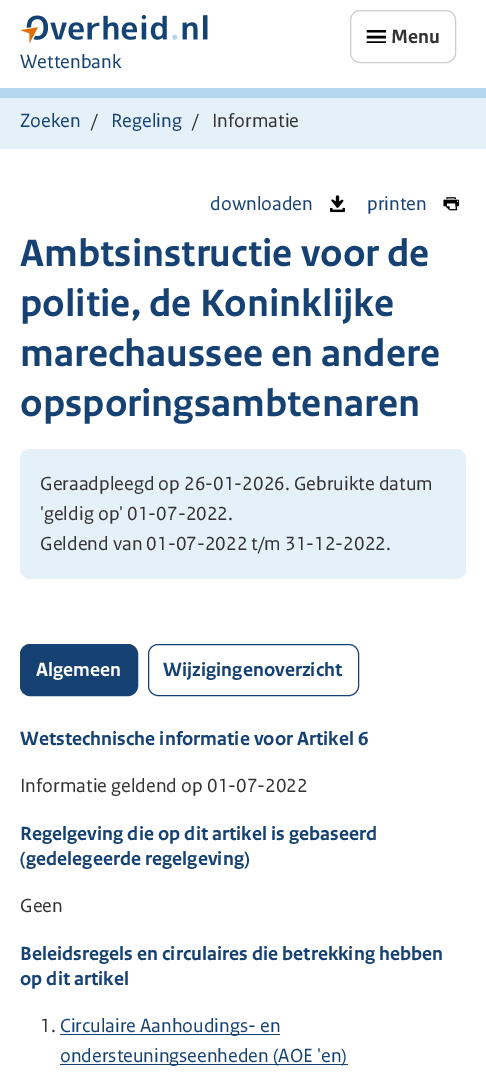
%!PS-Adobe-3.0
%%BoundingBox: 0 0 486 1088
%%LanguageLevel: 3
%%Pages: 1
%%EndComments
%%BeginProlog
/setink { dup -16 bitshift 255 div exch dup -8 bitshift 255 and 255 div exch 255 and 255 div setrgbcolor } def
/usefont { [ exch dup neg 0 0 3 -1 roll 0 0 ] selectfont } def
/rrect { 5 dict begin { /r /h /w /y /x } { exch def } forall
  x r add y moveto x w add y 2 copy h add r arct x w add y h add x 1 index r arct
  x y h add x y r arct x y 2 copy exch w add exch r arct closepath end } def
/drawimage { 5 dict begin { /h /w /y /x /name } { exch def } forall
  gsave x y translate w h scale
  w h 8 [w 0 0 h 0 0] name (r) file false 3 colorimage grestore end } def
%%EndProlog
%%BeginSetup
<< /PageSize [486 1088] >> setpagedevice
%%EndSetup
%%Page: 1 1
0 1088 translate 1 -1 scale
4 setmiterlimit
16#FFFFFF setink
0 0 486 1088 rectfill
16#B2D7EE setink
0 88 486 10 rectfill
gsave
366 30 20 13 rectclip
16#000000 setink
2.4 setlinewidth
2 setlinecap
368 31 moveto 385 31 lineto 368 37 moveto 385 37 lineto 368 42.5 moveto 385 42.5 lineto stroke
grestore
16#CCCCCC setink
350.5 10.5 105 52 9.5 rrect stroke
/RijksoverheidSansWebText-Bold 20 usefont
16#333333 setink
391 43 moveto (Menu) show
(img1.raw) 20 15 188 29 drawimage
/RijksoverheidSansWebText-Regular 20 usefont
16#154273 setink
20 68 moveto (Wettenbank) show
16#E5F1F9 setink
0 98 486 51 rectfill
16#154273 setink
20 127 moveto (Zoeken) show
16#333333 setink
91 127 moveto (/) show
16#154273 setink
111 127 moveto (Regeling) show
16#333333 setink
192 127 moveto (/) show
212 127 moveto (Informatie) show
16#154273 setink
210 210 moveto (downloaden) show
(img2.raw) 330 195 15 18 drawimage
367 210 moveto (printen) show
(img3.raw) 443 197 17 14 drawimage
/RijksoverheidSansWebText-Bold 40 usefont
[
    [(Ambtsinstructie voor de) 20 266]
    [(politie, de Koninklijke) 20 316]
    [(marechaussee en andere) 20 366]
    [(opsporingsambtenaren) 20 416]
] { aload pop moveto show } forall
16#E5F1F9 setink
20 449 446 130 10 rrect fill
/RijksoverheidSansWebText-Regular 20 usefont
16#333333 setink
[
    [(Geraadpleegd op 26-01-2026. Gebruikte datum) 40 490]
    [('geldig op' 01-07-2022.) 40 520]
    [(Geldend van 01-07-2022 t/m 31-12-2022.) 40 550]
] { aload pop moveto show } forall
16#154273 setink
20.5 644.5 117 51 9.5 rrect gsave fill grestore
stroke
/RijksoverheidSansWebText-Bold 20 usefont
16#FFFFFF setink
36 676 moveto (Algemeen) show
16#154273 setink
148.5 644.5 210 51 9.5 rrect stroke
163 676 moveto (Wijzigingenoverzicht) show
20 745 moveto (Wetstechnische informatie voor Artikel 6) show
/RijksoverheidSansWebText-Regular 20 usefont
16#333333 setink
20 792 moveto (Informatie geldend op 01-07-2022) show
/RijksoverheidSansWebText-Bold 20 usefont
16#154273 setink
20 840 moveto (Regelgeving die op dit artikel is gebaseerd) show
20 865 moveto (\(gedelegeerde regelgeving\)) show
/RijksoverheidSansWebText-Regular 20 usefont
16#333333 setink
20 912 moveto (Geen) show
/RijksoverheidSansWebText-Bold 20 usefont
16#154273 setink
20 960 moveto (Beleidsregels en circulaires die betrekking hebben) show
20 985 moveto (op dit artikel) show
/RijksoverheidSansWebText-Regular 20 usefont
16#333333 setink
40 1032 moveto (1.) show
16#154273 setink
60 1034 220 1 rectfill
60 1032 moveto (Circulaire Aanhoudings- en) show
60 1064 288 1 rectfill
60 1062 moveto (ondersteuningseenheden \(AOE 'en\)) show
showpage
%%EOF
